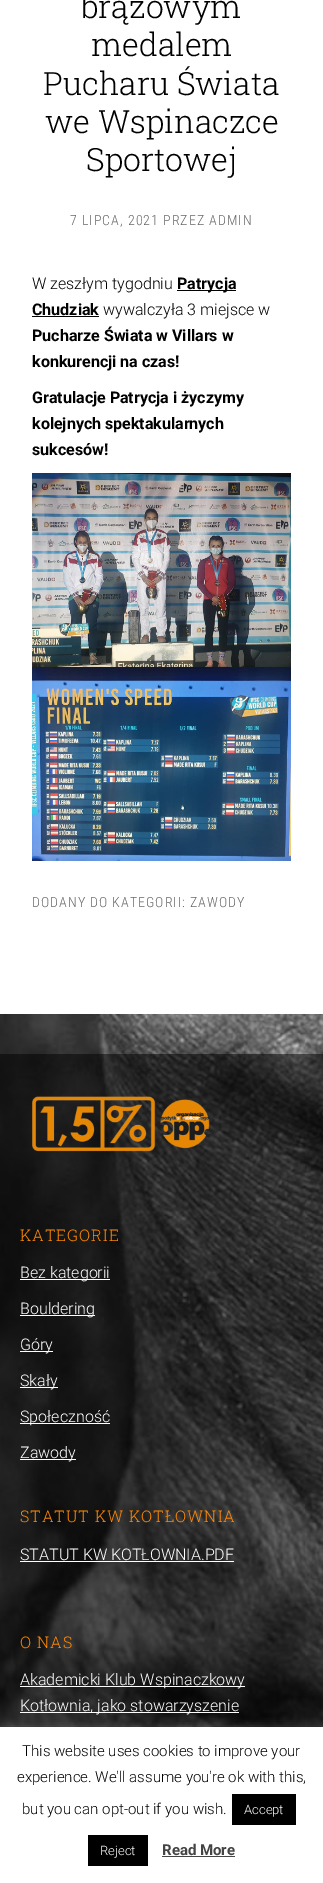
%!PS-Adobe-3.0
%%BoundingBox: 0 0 323 1883
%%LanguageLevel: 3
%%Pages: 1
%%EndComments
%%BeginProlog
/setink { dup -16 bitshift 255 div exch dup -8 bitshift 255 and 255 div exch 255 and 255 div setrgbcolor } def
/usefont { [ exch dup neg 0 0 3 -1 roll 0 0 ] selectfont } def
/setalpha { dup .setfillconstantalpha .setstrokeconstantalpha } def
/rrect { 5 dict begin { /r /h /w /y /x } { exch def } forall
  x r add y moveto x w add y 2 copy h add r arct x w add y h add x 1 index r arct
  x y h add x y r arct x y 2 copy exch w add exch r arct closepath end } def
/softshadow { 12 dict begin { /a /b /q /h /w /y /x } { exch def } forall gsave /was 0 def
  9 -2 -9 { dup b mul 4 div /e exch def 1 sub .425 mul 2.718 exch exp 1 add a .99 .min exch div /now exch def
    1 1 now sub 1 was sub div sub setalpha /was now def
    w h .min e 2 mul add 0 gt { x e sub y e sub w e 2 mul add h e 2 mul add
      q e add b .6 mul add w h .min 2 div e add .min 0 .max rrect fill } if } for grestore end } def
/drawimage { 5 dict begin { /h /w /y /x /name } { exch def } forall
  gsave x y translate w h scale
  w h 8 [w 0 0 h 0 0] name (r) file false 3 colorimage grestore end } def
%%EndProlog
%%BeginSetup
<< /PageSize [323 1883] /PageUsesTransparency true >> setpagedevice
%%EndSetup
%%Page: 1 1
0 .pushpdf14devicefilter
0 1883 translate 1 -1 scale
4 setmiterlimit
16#FFFFFF setink
0 0 323 1883 rectfill
/RobotoSlab-Light 32 usefont
16#000000 setink
[
    [(brązowym) 81 18]
    [(medalem) 91 56]
    [(Pucharu Świata) 43 95]
    [(we Wspinaczce) 45 133]
    [(Sportowej) 86 171]
] { aload pop moveto show } forall
/RobotoCondensed-Light 14 usefont
16#666666 setink
70 225 moveto 1 0 (7 LIPCA, 2021 PRZEZ ADMIN) ashow
/Roboto-Light 16 usefont
16#000000 setink
32 289 moveto (W zeszłym tygodniu) show
177 290 59 1 rectfill
/Roboto-Bold 16 usefont
177 289 moveto (Patrycja) show
32 315 moveto (Chudziak) show
32 316 67 1 rectfill
/Roboto-Light 16 usefont
103 315 moveto (wywalczyła 3 miejsce w) show
/Roboto-Bold 16 usefont
[
    [(Pucharze Świata w Villars w) 32 341]
    [(konkurencji na czas!) 32 367]
    [(Gratulacje Patrycja i życzymy) 32 403]
    [(kolejnych spektakularnych) 32 429]
    [(sukcesów!) 32 455]
] { aload pop moveto show } forall
(img1.raw) 32 473 259 194 drawimage
(img2.raw) 32 667 259 194 drawimage
/RobotoCondensed-Light 14 usefont
16#666666 setink
32 907 moveto 1 0 (DODANY DO KATEGORII: ZAWODY) ashow
(img4.raw) 0 1014 323 713 drawimage
0.5 setalpha
16#000000 setink
0 1054 323 673 rectfill
1 setalpha
(img3.raw) 32 1096 178 56 drawimage
/RobotoSlab-Light 16 usefont
16#FF8803 setink
20 1241 moveto 1 0 (KATEGORIE) ashow
16#FFFFFF setink
20 1279 90 1 rectfill
/Roboto-Light 16 usefont
20 1278 moveto (Bez kategorii) show
20 1315 75 1 rectfill
20 1314 moveto (Bouldering) show
20 1351 33 1 rectfill
20 1350 moveto (Góry) show
20 1387 38 1 rectfill
20 1386 moveto (Skały) show
20 1423 90 1 rectfill
20 1422 moveto (Społeczność) show
20 1459 56 1 rectfill
20 1458 moveto (Zawody) show
/RobotoSlab-Light 16 usefont
16#FF8803 setink
20 1522 moveto 1 0 (STATUT KW KOTŁOWNIA) ashow
/Roboto-Light 16 usefont
16#FFFFFF setink
20 1560 moveto (STATUT KW KOTŁOWNIA.PDF) show
20 1561 214 1 rectfill
/RobotoSlab-Light 16 usefont
16#FF8803 setink
20 1648 moveto 1 0 (O NAS) ashow
16#FFFFFF setink
20 1686 225 1 rectfill
/Roboto-Light 16 usefont
20 1685 moveto (Akademicki Klub Wspinaczkowy) show
20 1712 219 1 rectfill
20 1711 moveto (Kotłownia, jako stowarzyszenie) show
16#ACABAB setink
0 1726 323 156 0 5 0.3 softshadow
16#FFFFFF setink
0 1727 323 156 rectfill
/Roboto-Light 15 usefont
16#000000 setink
[
    [(This website uses cookies to improve your) 22 1756]
    [(experience. We'll assume you're ok with this,) 17 1782]
    [(but you can opt-out if you wish.) 22 1814]
] { aload pop moveto show } forall
232 1794 64 31 rectfill
/Roboto-Light 13 usefont
16#FFFFFF setink
244 1814 moveto (Accept) show
16#000000 setink
88 1835 60 31 rectfill
16#FFFFFF setink
100 1855 moveto (Reject) show
/Roboto-Bold 15 usefont
16#444444 setink
162 1855 moveto (Read More) show
162 1856 73 1 rectfill
.poppdf14devicefilter showpage
%%EOF
